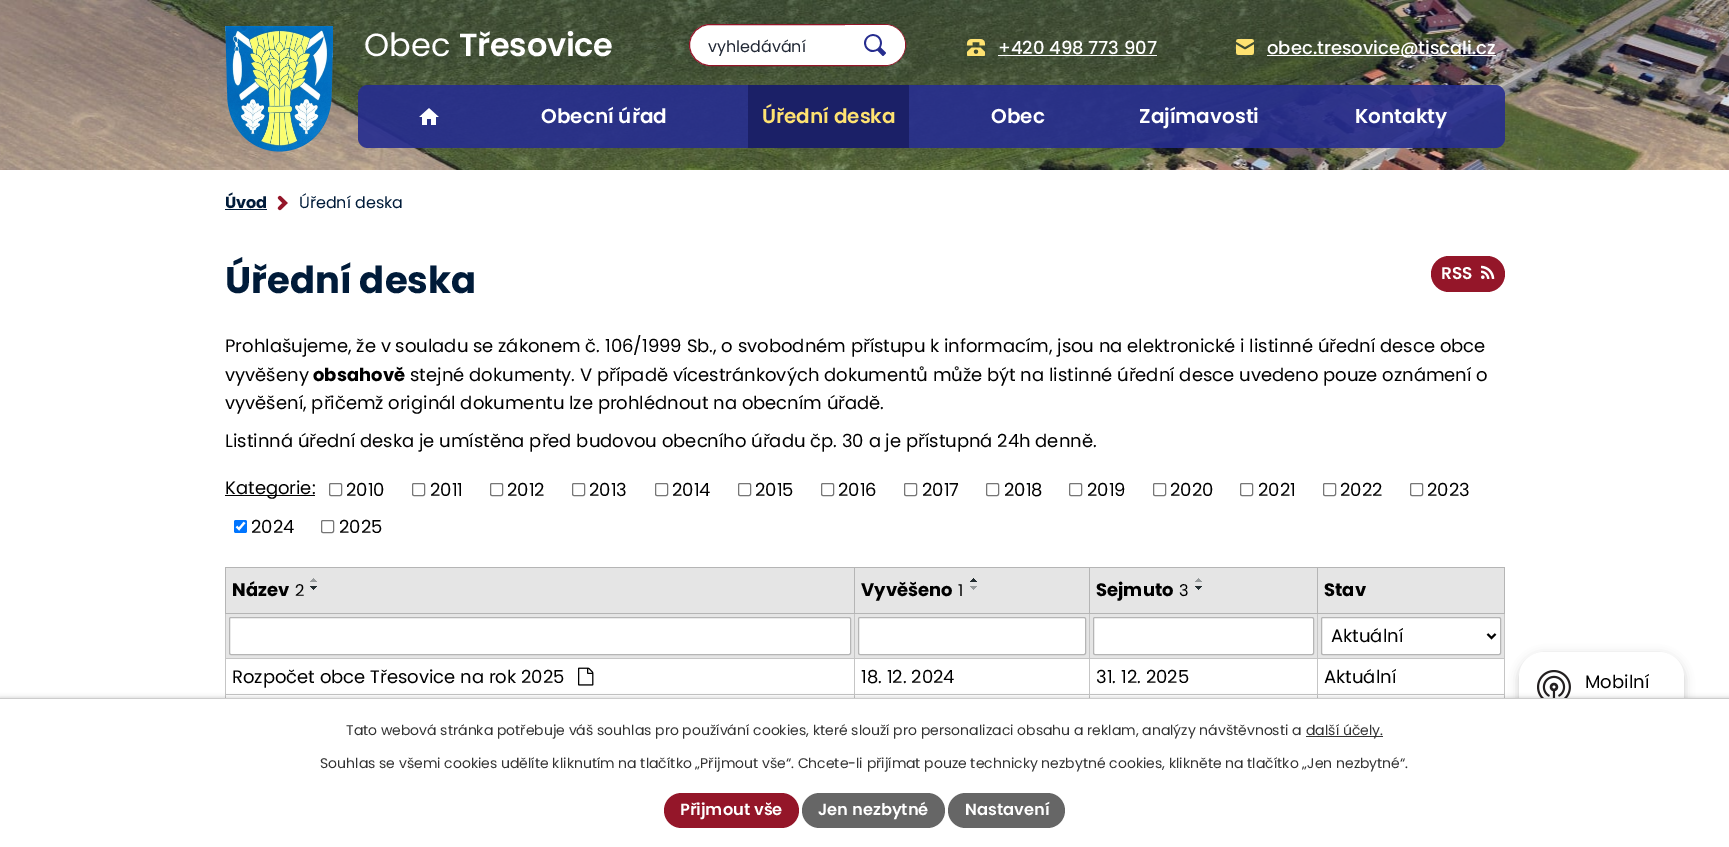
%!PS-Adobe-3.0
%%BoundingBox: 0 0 1729 847
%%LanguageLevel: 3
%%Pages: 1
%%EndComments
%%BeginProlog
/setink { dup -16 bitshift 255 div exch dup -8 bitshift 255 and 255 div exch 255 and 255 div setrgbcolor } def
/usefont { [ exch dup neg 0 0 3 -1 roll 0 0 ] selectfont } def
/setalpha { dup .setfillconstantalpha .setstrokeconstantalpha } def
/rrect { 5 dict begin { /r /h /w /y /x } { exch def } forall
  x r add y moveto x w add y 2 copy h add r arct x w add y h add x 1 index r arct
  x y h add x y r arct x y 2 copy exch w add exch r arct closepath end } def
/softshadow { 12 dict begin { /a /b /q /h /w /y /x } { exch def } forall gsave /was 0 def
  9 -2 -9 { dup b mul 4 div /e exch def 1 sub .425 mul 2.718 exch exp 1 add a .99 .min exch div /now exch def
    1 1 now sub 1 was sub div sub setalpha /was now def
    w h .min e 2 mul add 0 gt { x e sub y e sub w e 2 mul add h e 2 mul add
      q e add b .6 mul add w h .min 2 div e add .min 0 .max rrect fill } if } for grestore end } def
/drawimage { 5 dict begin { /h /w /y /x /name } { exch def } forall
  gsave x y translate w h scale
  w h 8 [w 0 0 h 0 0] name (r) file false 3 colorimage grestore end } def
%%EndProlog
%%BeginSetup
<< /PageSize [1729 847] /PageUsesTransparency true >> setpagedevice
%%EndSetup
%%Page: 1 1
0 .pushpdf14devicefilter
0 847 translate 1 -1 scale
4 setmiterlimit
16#FFFFFF setink
0 0 1729 847 rectfill
(img1.raw) 0 0 1729 170 drawimage
(img2.raw) 225 26 108 126 drawimage
/Poppins-Regular 32 usefont
364 56 moveto (Obec) show
/Poppins-SemiBold 32 usefont
459 56 moveto -0.25 0 (Třesovice) ashow
689.5 24.5 216 41 20.5 rrect gsave fill grestore
16#941629 setink
stroke
/Poppins-Regular 16 usefont
16#202734 setink
708 52 moveto (vyhledávání) show
16#FFFFFF setink
845 25 moveto 885 25 lineto 896 25 905 34 905 45 curveto 905 56 896 65 885 65 curveto 845 65 lineto closepath fill
(img3.raw) 864 34 22 22 drawimage
(img4.raw) 967 39 18 17 drawimage
/Poppins-Medium 18 usefont
998 54 moveto (+420 498 773 907) show
998 55 159 1 rectfill
(img5.raw) 1236 39 18 16 drawimage
1267 55 229 1 rectfill
1267 54 moveto (obec.tresovice@tiscali.cz) show
0.9 setalpha
16#262D8F setink
358 85 1147 63 10 rrect fill
1 setalpha
(img6.raw) 419 108 20 17 drawimage
/Poppins-SemiBold 20 usefont
16#FFFFFF setink
541 123 moveto (Obecní úřad) show
16#1B2067 setink
748 85 161 63 rectfill
16#FEE271 setink
762 123 moveto (Úřední deska) show
16#FFFFFF setink
[
    [(Obec) 991 123]
    [(Zajímavosti) 1139 123]
    [(Kontakty) 1355 123]
] { aload pop moveto show } forall
/Poppins-Bold 16 usefont
16#001B39 setink
225 208 moveto (Úvod) show
225 209 42 1 rectfill
(img7.raw) 277 195 11 16 drawimage
/Poppins-Regular 16 usefont
299 208 moveto (Úřední deska) show
/Poppins-Bold 37 usefont
225 293 moveto (Úřední deska) show
16#941629 setink
1431 256 74 36 18 rrect fill
/Poppins-SemiBold 17 usefont
16#FFFFFF setink
1441 279 moveto (RSS) show
(img8.raw) 1481 265 14 14 drawimage
/Poppins-Regular 18 usefont
16#000000 setink
225 352 moveto (Prohlašujeme, že v souladu se zákonem č. 106/1999 Sb., o svobodném přístupu k informacím, jsou na elektronické i listinné úřední desce obce) show
225 381 moveto (vyvěšeny) show
/Poppins-Bold 18 usefont
313 381 moveto (obsahově) show
/Poppins-Regular 18 usefont
[
    [(stejné dokumenty. V případě vícestránkových dokumentů může být na listinné úřední desce uvedeno pouze oznámení o) 410 381]
    [(vyvěšení, přičemž originál dokumentu lze prohlédnout na obecním úřadě.) 225 409]
    [(Listinná úřední deska je umístěna před budovou obecního úřadu čp. 30 a je přístupná 24h denně.) 225 447]
] { aload pop moveto show } forall
225 495 90 1 rectfill
225 494 moveto (Kategorie:) show
16#767676 setink
329.5 483.5 12 12 1.5 rrect stroke
16#000000 setink
346 496 moveto (2010) show
16#767676 setink
412.5 483.5 12 12 1.5 rrect stroke
16#000000 setink
430 496 moveto (2011) show
16#767676 setink
490.5 483.5 12 12 1.5 rrect stroke
16#000000 setink
507 496 moveto (2012) show
16#767676 setink
572.5 483.5 12 12 1.5 rrect stroke
16#000000 setink
589 496 moveto (2013) show
16#767676 setink
655.5 483.5 12 12 1.5 rrect stroke
16#000000 setink
672 496 moveto (2014) show
16#767676 setink
738.5 483.5 12 12 1.5 rrect stroke
16#000000 setink
755 496 moveto (2015) show
16#767676 setink
821.5 483.5 12 12 1.5 rrect stroke
16#000000 setink
838 496 moveto (2016) show
16#767676 setink
904.5 483.5 12 12 1.5 rrect stroke
16#000000 setink
922 496 moveto (2017) show
16#767676 setink
986.5 483.5 12 12 1.5 rrect stroke
16#000000 setink
1004 496 moveto (2018) show
16#767676 setink
1069.5 483.5 12 12 1.5 rrect stroke
16#000000 setink
1087 496 moveto (2019) show
16#767676 setink
1153.5 483.5 12 12 1.5 rrect stroke
16#000000 setink
1170 496 moveto (2020) show
16#767676 setink
1240.5 483.5 12 12 1.5 rrect stroke
16#000000 setink
1258 496 moveto (2021) show
16#767676 setink
1323.5 483.5 12 12 1.5 rrect stroke
16#000000 setink
1340 496 moveto (2022) show
16#767676 setink
1410.5 483.5 12 12 1.5 rrect stroke
16#000000 setink
1427 496 moveto (2023) show
16#0075FF setink
234 520 13 13 2 rrect fill
16#FFFFFF setink
2.1 setlinewidth
236.5 526.5 moveto 239 529 lineto 244.5 522.5 lineto stroke
16#000000 setink
251 533 moveto (2024) show
16#767676 setink
1 setlinewidth
321.5 520.5 12 12 1.5 rrect stroke
16#000000 setink
339 533 moveto (2025) show
[
    [226 568 628 45 16#E5E5E5]
    [1317 567 188 1 16#B5B5B5]
    [1317 658 188 1 16#C5C5C5]
    [1317 694 188 1 16#C5C5C5]
    [1504 694 1 4 16#C5C5C5]
    [1504 613 1 82 16#C5C5C5]
    [1504 567 1 47 16#B5B5B5]
    [226 614 1278 44 16#E5E5E5]
    [1317 694 1 4 16#C5C5C5]
    [1089 694 229 1 16#C5C5C5]
    [1317 658 1 37 16#C5C5C5]
    [1089 658 229 1 16#C5C5C5]
    [1317 613 1 46 16#C5C5C5]
    [1317 613 188 1 16#B5B5B5]
    [1317 567 1 47 16#B5B5B5]
    [1089 567 229 1 16#B5B5B5]
    [1089 694 1 4 16#C5C5C5]
    [854 694 236 1 16#C5C5C5]
    [1089 658 1 37 16#C5C5C5]
    [854 658 236 1 16#C5C5C5]
    [1089 613 1 46 16#C5C5C5]
    [1089 613 229 1 16#B5B5B5]
    [1089 567 1 47 16#B5B5B5]
    [854 567 236 1 16#B5B5B5]
    [854 694 1 4 16#C5C5C5]
    [225 694 630 1 16#C5C5C5]
    [854 658 1 37 16#C5C5C5]
    [225 658 630 1 16#C5C5C5]
    [854 613 1 46 16#C5C5C5]
    [854 613 236 1 16#B5B5B5]
    [854 567 1 47 16#B5B5B5]
    [225 567 630 1 16#B5B5B5]
    [225 694 1 4 16#C5C5C5]
    [225 613 1 82 16#C5C5C5]
    [225 613 630 1 16#B5B5B5]
    [225 567 1 47 16#B5B5B5]
] { aload pop setink rectfill } forall
/Poppins-Bold 18 usefont
16#000000 setink
232 596 moveto (Název) show
/Poppins-Regular 16.25 usefont
295 596 moveto (2) show
(img9.raw) 310 578 7 4 drawimage
(img10.raw) 310 586 7 4 drawimage
16#E5E5E5 setink
855 568 234 45 rectfill
/Poppins-Bold 18 usefont
16#000000 setink
861 596 moveto (Vyvěšeno) show
/Poppins-Regular 16.25 usefont
958 596 moveto (1) show
(img11.raw) 970 578 7 4 drawimage
(img12.raw) 970 586 7 4 drawimage
16#E5E5E5 setink
1090 568 227 45 rectfill
/Poppins-Bold 18 usefont
16#000000 setink
1096 596 moveto (Sejmuto) show
/Poppins-Regular 16.25 usefont
1179 596 moveto (3) show
(img9.raw) 1195 578 7 4 drawimage
(img10.raw) 1195 586 7 4 drawimage
16#E5E5E5 setink
1318 568 186 45 rectfill
/Poppins-Bold 18 usefont
16#000000 setink
1324 596 moveto (Stav) show
16#FFFFFF setink
229.5 617.5 621 37 1.5 rrect gsave fill grestore
16#B5B5B5 setink
stroke
16#FFFFFF setink
858.5 617.5 227 37 1.5 rrect gsave fill grestore
16#B5B5B5 setink
stroke
16#FFFFFF setink
1093.5 617.5 220 37 1.5 rrect gsave fill grestore
16#B5B5B5 setink
stroke
16#FFFFFF setink
1321.5 617.5 179 37 1.5 rrect gsave fill grestore
16#B5B5B5 setink
stroke
16#000000 setink
2 setlinewidth
1487.5 634 moveto 1491.5 638 lineto 1495.5 634 lineto stroke
/Poppins-Regular 18 usefont
1331 642 moveto (Aktuální) show
232 683 moveto (Rozpočet obce Třesovice na rok 2025) show
(img13.raw) 578 667 16 19 drawimage
[
    [(18. 12. 2024) 861 683]
    [(31. 12. 2025) 1096 683]
    [(Aktuální) 1324 683]
] { aload pop moveto show } forall
1519 655 165 150 25 5 0.2 softshadow
16#FFFFFF setink
1519 652 165 150 25 rrect fill
(img14.raw) 1537 670 34 28 drawimage
16#000000 setink
1585 688 moveto (Mobilní) show
0 698 1729 149 0 2.5 0.2 softshadow
16#FFFFFF setink
0 699 1729 148 rectfill
16#CCCCCC setink
0 698 1729 1 rectfill
/Poppins-Regular 14 usefont
16#333333 setink
346 735 moveto (Tato webová stránka potřebuje váš souhlas pro používání cookies, které slouží pro personalizaci obsahu a reklam, analýzy návštěvnosti a) show
1306 736 77 1 rectfill
1306 735 moveto (další účely.) show
320 768 moveto (Souhlas se všemi cookies udělíte kliknutím na tlačítko „Přijmout vše“. Chcete-li přijímat pouze technicky nezbytné cookies, klikněte na tlačítko „Jen nezbytné“.) show
16#941629 setink
664 793 135 35 17.5 rrect fill
/Poppins-SemiBold 16.25 usefont
16#FFFFFF setink
680 815 moveto (Přijmout vše) show
16#666666 setink
802 793 143 35 17.5 rrect fill
16#FFFFFF setink
818 815 moveto (Jen nezbytné) show
16#666666 setink
948 793 117 35 17.5 rrect fill
16#FFFFFF setink
965 815 moveto (Nastavení) show
.poppdf14devicefilter showpage
%%EOF
